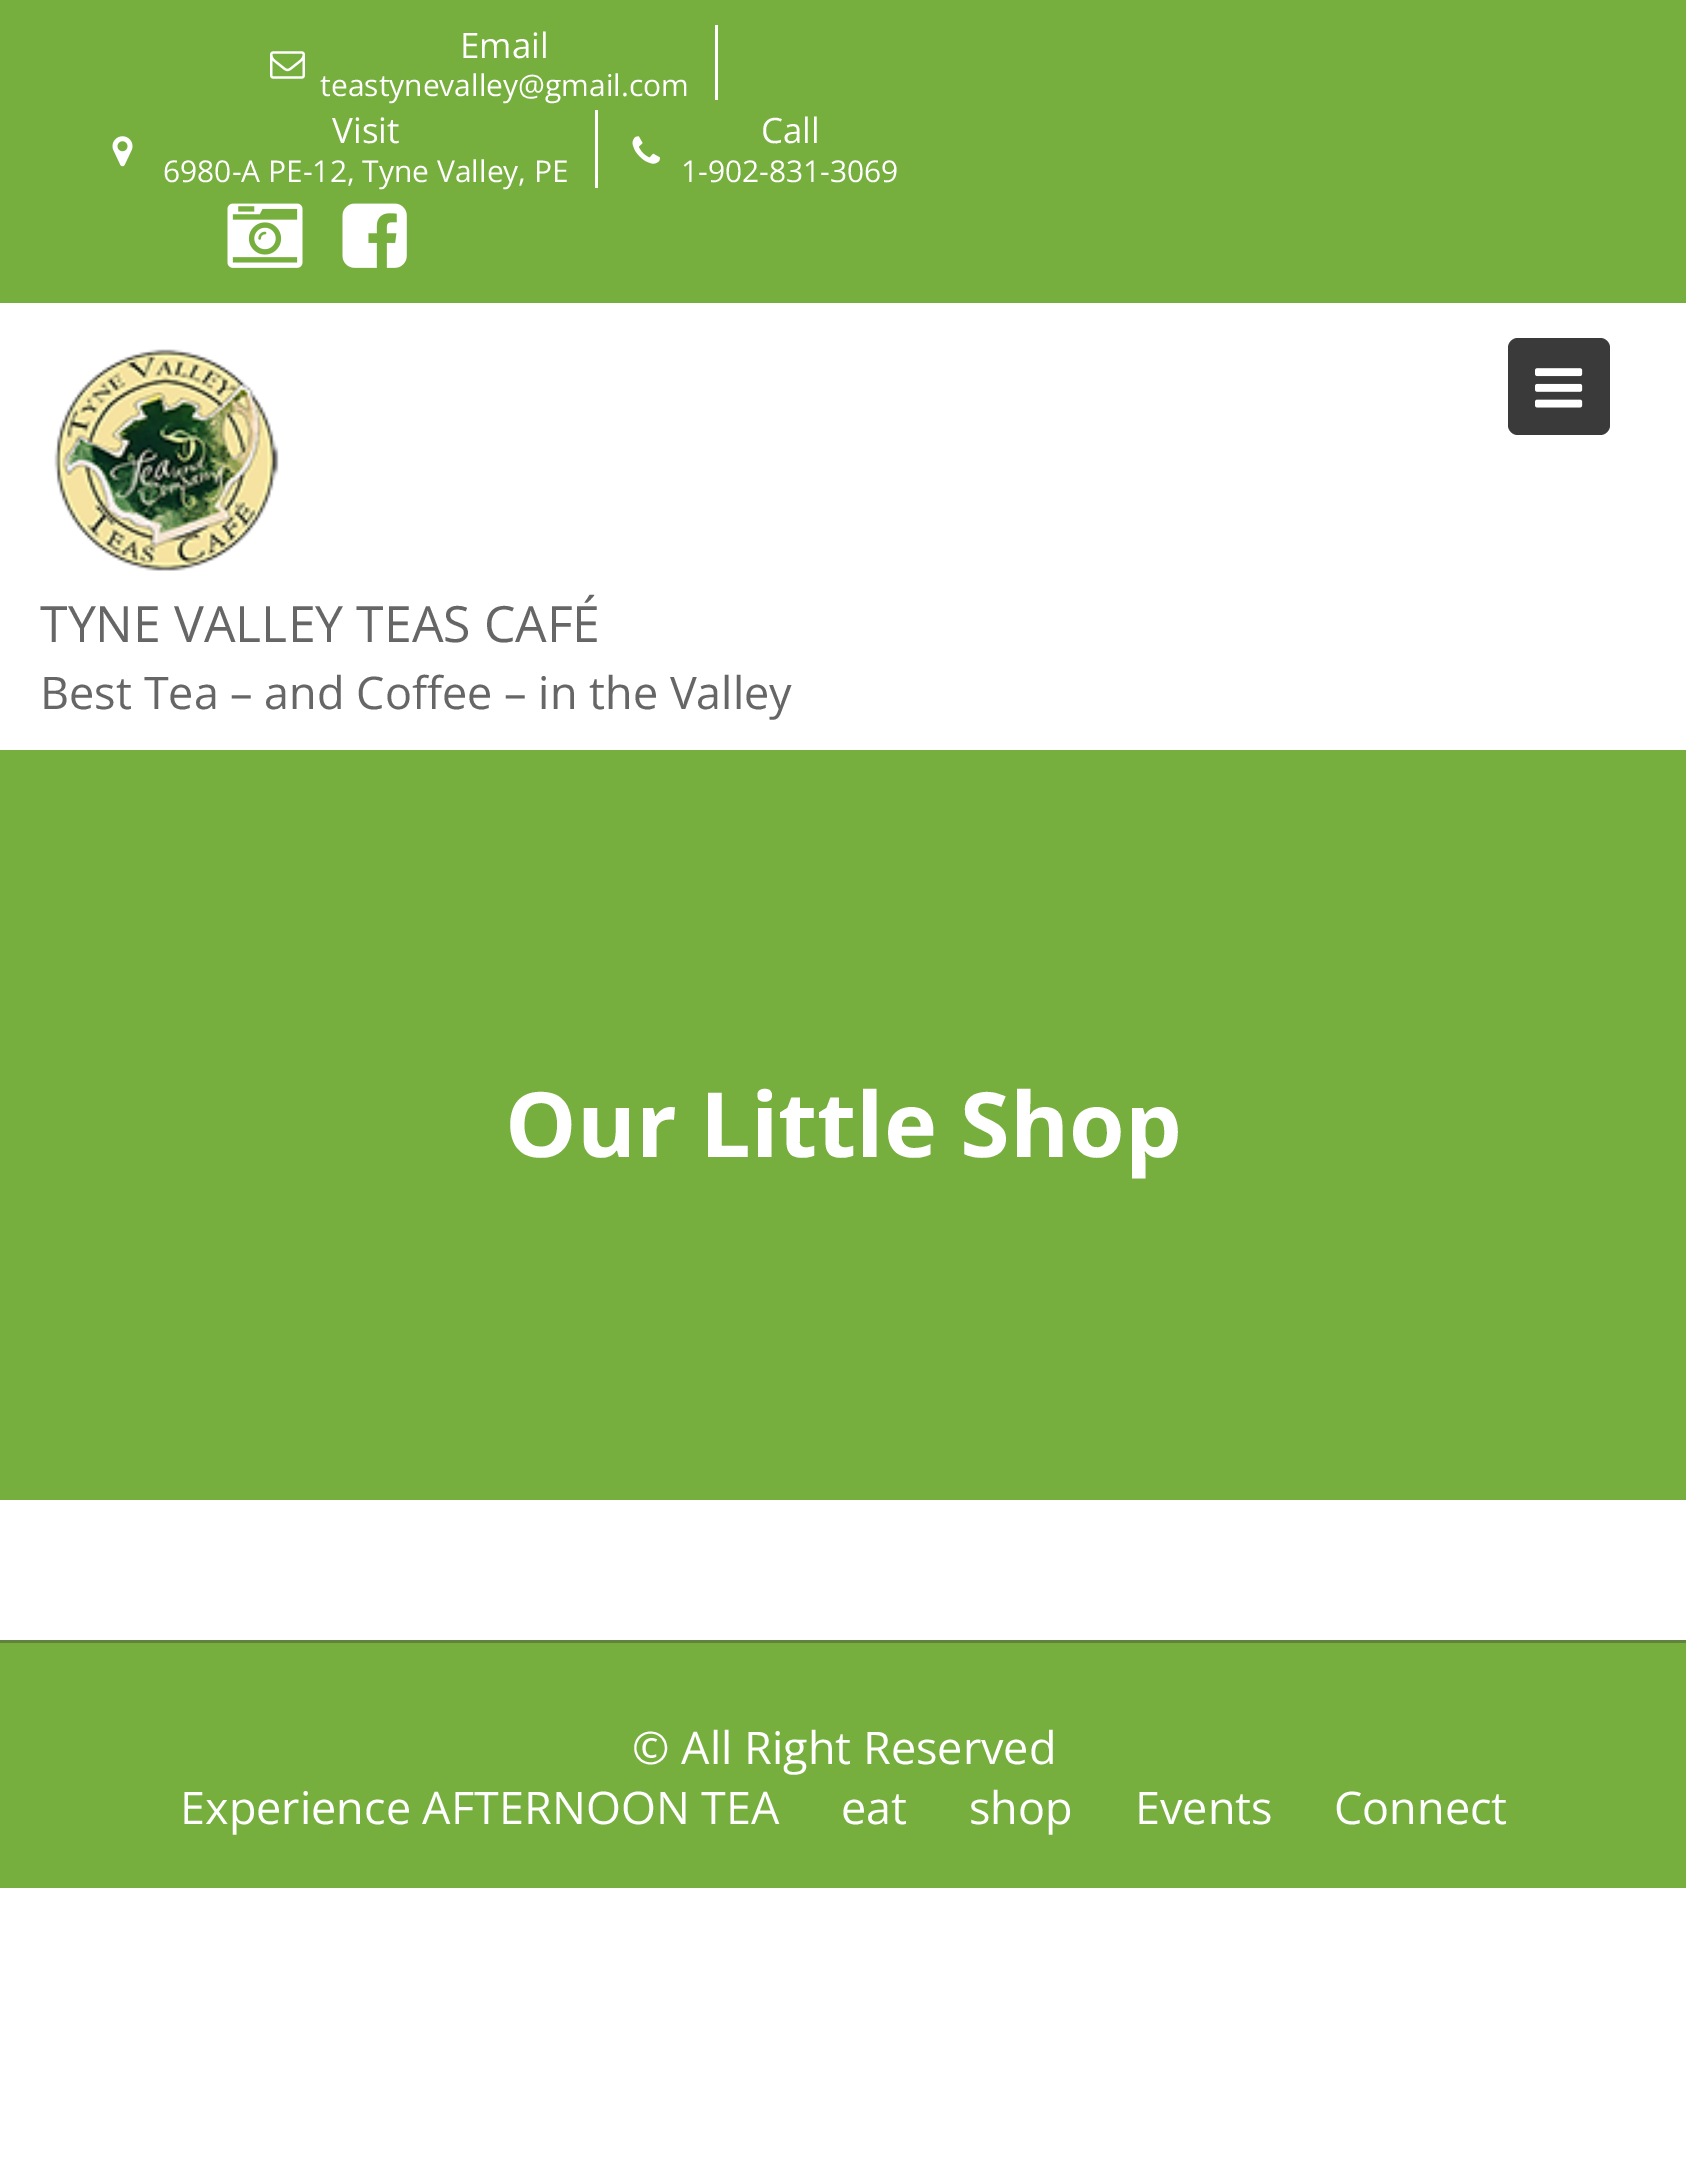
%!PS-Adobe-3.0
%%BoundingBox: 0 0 1686 2170
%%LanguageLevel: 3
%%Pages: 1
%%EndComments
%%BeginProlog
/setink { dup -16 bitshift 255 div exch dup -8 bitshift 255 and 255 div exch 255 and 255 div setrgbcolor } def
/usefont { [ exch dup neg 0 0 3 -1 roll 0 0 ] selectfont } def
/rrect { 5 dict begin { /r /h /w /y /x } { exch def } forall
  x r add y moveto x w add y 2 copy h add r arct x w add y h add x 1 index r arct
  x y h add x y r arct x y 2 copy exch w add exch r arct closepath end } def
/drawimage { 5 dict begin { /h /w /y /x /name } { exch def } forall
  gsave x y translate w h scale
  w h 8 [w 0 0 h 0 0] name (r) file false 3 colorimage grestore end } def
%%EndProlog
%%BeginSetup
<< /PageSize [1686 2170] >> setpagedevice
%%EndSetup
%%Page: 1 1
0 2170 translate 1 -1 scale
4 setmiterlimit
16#FFFFFF setink
0 0 1686 2170 rectfill
16#77AF3F setink
0 0 1686 303 rectfill
16#FFFFFF setink
715 25 3 75 rectfill
(img1.raw) 270 51 35 28 drawimage
/OpenSans-Regular 35 usefont
460 58 moveto (Email) show
/OpenSans-Regular 30 usefont
320 96 moveto (teastynevalley@gmail.com) show
595 110 3 78 rectfill
(img2.raw) 112 136 21 31 drawimage
/OpenSans-Regular 35 usefont
332 143 moveto (Visit) show
/OpenSans-Regular 30 usefont
163 182 moveto (6980-A PE-12, Tyne Valley, PE) show
(img3.raw) 632 136 28 28 drawimage
/OpenSans-Regular 35 usefont
761 143 moveto (Call) show
/OpenSans-Regular 30 usefont
681 182 moveto (1-902-831-3069) show
(img4.raw) 227 203 76 65 drawimage
(img5.raw) 342 203 65 65 drawimage
(img6.raw) 54 349 225 222 drawimage
16#3A3A3A setink
1508 338 102 97 10 rrect fill
(img7.raw) 1535 368 48 40 drawimage
/OpenSans-Regular 50 usefont
16#666666 setink
40 642 moveto (TYNE VALLEY TEAS CAFÉ) show
/OpenSans-Regular 45 usefont
40 709 moveto (Best Tea – and Coffee – in the Valley) show
16#77AF3F setink
0 750 1686 750 rectfill
/OpenSans-Bold 90 usefont
16#FFFFFF setink
505 1157 moveto (Our Little Shop) show
16#77AF3F setink
0 1643 1686 245 rectfill
16#61833F setink
0 1640 1686 3 rectfill
/OpenSans-Regular 45 usefont
16#FFFFFF setink
[
    [(© All Right Reserved) 632 1764]
    [(Experience AFTERNOON TEA) 180 1824]
    [(eat) 841 1824]
    [(shop) 969 1824]
    [(Events) 1135 1824]
    [(Connect) 1334 1824]
] { aload pop moveto show } forall
showpage
%%EOF
